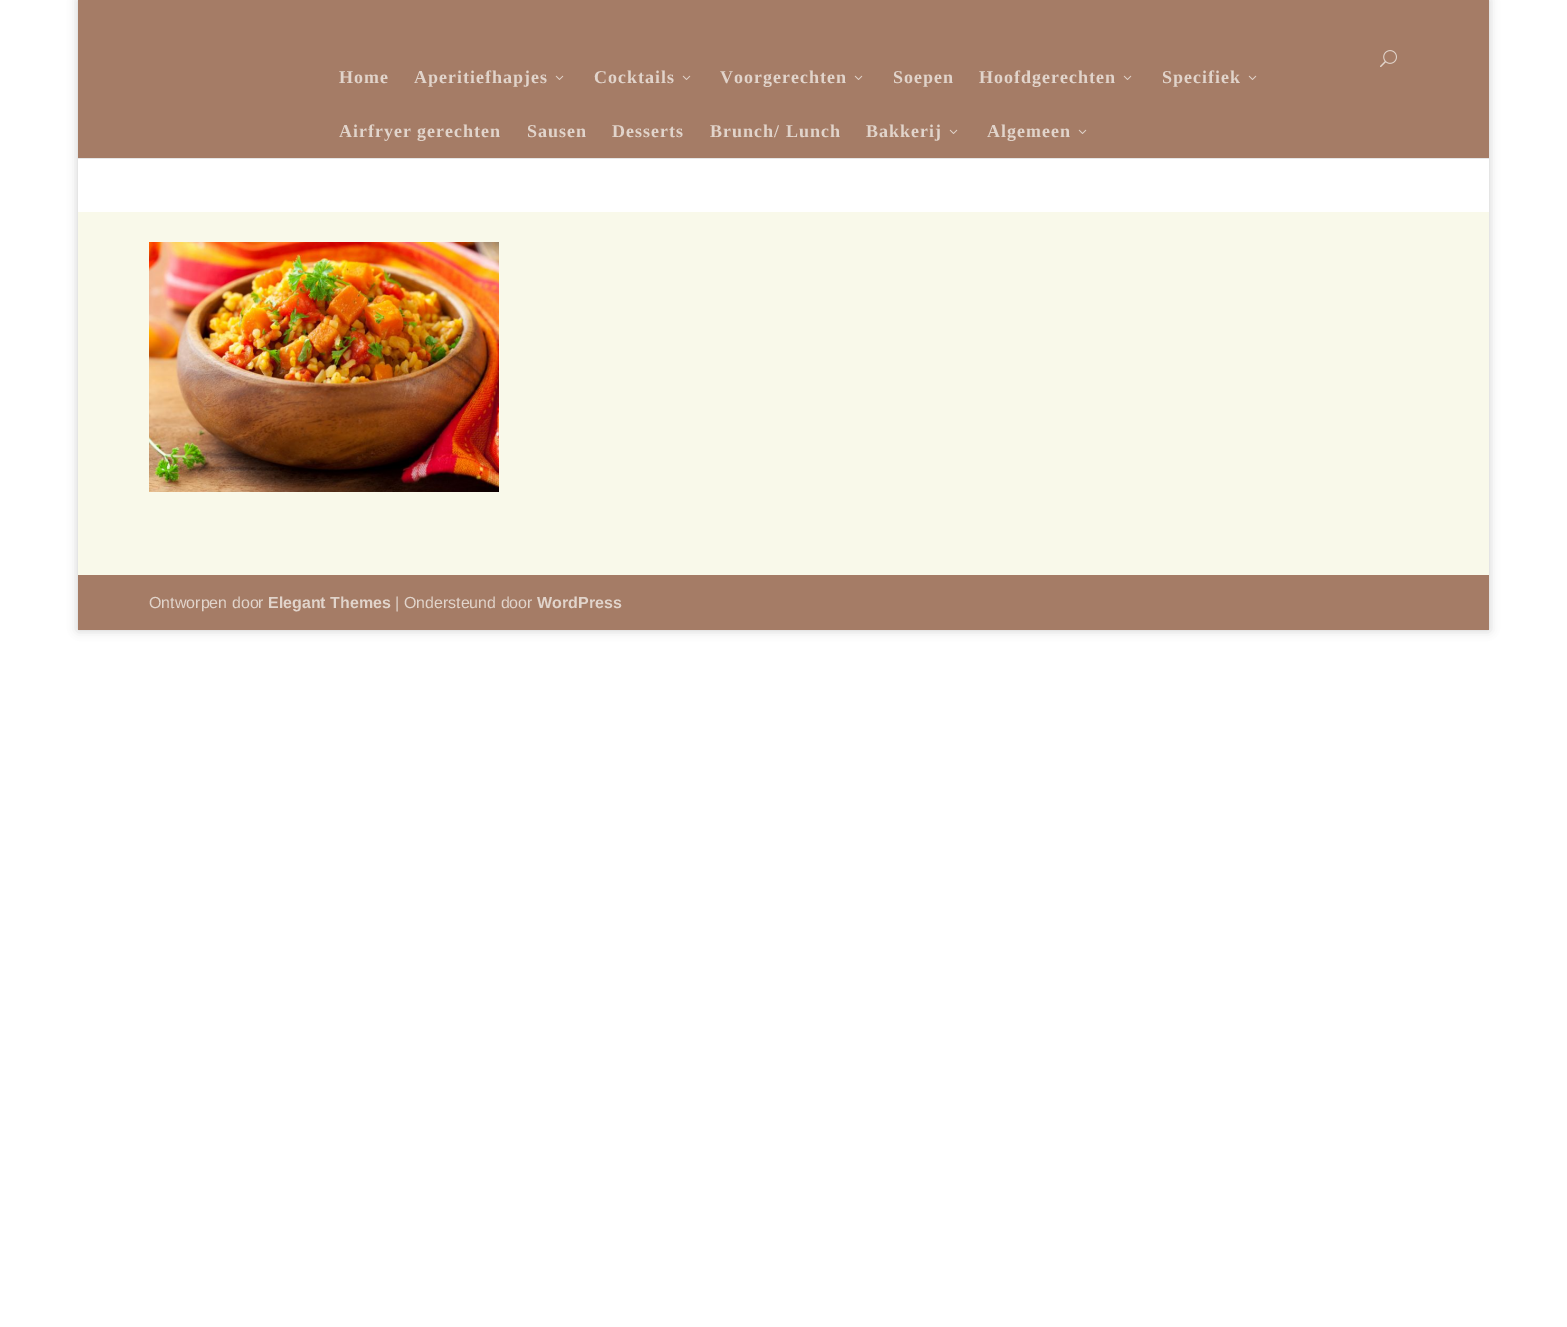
%!PS-Adobe-3.0
%%BoundingBox: 0 0 1567 1327
%%LanguageLevel: 3
%%Pages: 1
%%EndComments
%%BeginProlog
/setink { dup -16 bitshift 255 div exch dup -8 bitshift 255 and 255 div exch 255 and 255 div setrgbcolor } def
/usefont { [ exch dup neg 0 0 3 -1 roll 0 0 ] selectfont } def
/setalpha { dup .setfillconstantalpha .setstrokeconstantalpha } def
/rrect { 5 dict begin { /r /h /w /y /x } { exch def } forall
  x r add y moveto x w add y 2 copy h add r arct x w add y h add x 1 index r arct
  x y h add x y r arct x y 2 copy exch w add exch r arct closepath end } def
/softshadow { 12 dict begin { /a /b /q /h /w /y /x } { exch def } forall gsave /was 0 def
  9 -2 -9 { dup b mul 4 div /e exch def 1 sub .425 mul 2.718 exch exp 1 add a .99 .min exch div /now exch def
    1 1 now sub 1 was sub div sub setalpha /was now def
    w h .min e 2 mul add 0 gt { x e sub y e sub w e 2 mul add h e 2 mul add
      q e add b .6 mul add w h .min 2 div e add .min 0 .max rrect fill } if } for grestore end } def
/drawimage { 5 dict begin { /h /w /y /x /name } { exch def } forall
  gsave x y translate w h scale
  w h 8 [w 0 0 h 0 0] name (r) file false 3 colorimage grestore end } def
%%EndProlog
%%BeginSetup
<< /PageSize [1567 1327] /PageUsesTransparency true >> setpagedevice
%%EndSetup
%%Page: 1 1
0 .pushpdf14devicefilter
0 1327 translate 1 -1 scale
4 setmiterlimit
16#FFFFFF setink
0 0 1567 1327 rectfill
gsave
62 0 moveto 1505 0 lineto 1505 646 lineto 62 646 lineto closepath 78 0 moveto 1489 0 lineto 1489 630 lineto 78 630 lineto closepath eoclip newpath
16#000000 setink
78 0 1411 630 0 5 0.2 softshadow
grestore
16#E6E6E6 setink
78 158 1411 1 rectfill
16#A57C66 setink
78 0 1411 158 rectfill
(img1.raw) 1380 50 17 17 drawimage
/LiberationSerif-Bold 18 usefont
16#E1D4CB setink
339 83 moveto 1 0 (Home) ashow
414 83 moveto 1 0 (Aperitiefhapjes) ashow
(img2.raw) 555 75 9 5 drawimage
594 83 moveto 1 0 (Cocktails) ashow
(img2.raw) 682 75 9 5 drawimage
720 83 moveto 1 0 (Voorgerechten) ashow
(img2.raw) 854 75 9 5 drawimage
893 83 moveto 1 0 (Soepen) ashow
979 83 moveto 1 0 (Hoofdgerechten) ashow
(img2.raw) 1123 75 9 5 drawimage
1162 83 moveto 1 0 (Specifiek) ashow
(img2.raw) 1248 75 9 5 drawimage
339 137 moveto 1 0 (Airfryer gerechten) ashow
527 137 moveto 1 0 (Sausen) ashow
612 137 moveto 1 0 (Desserts) ashow
710 137 moveto 1 0 (Brunch/ Lunch) ashow
866 137 moveto 1 0 (Bakkerij) ashow
(img2.raw) 949 129 9 5 drawimage
987 137 moveto 1 0 (Algemeen) ashow
(img2.raw) 1078 129 9 5 drawimage
16#F9F9EA setink
78 212 1411 363 rectfill
(img3.raw) 149 242 350 250 drawimage
16#A57C66 setink
78 575 1411 55 rectfill
/LiberationSans-Regular 16 usefont
16#E1D4CB setink
149 608 moveto (Ontworpen door) show
/LiberationSans-Bold 16 usefont
268 608 moveto (Elegant Themes) show
/LiberationSans-Regular 16 usefont
395 608 moveto (| Ondersteund door) show
/LiberationSans-Bold 16 usefont
537 608 moveto (WordPress) show
.poppdf14devicefilter showpage
%%EOF
